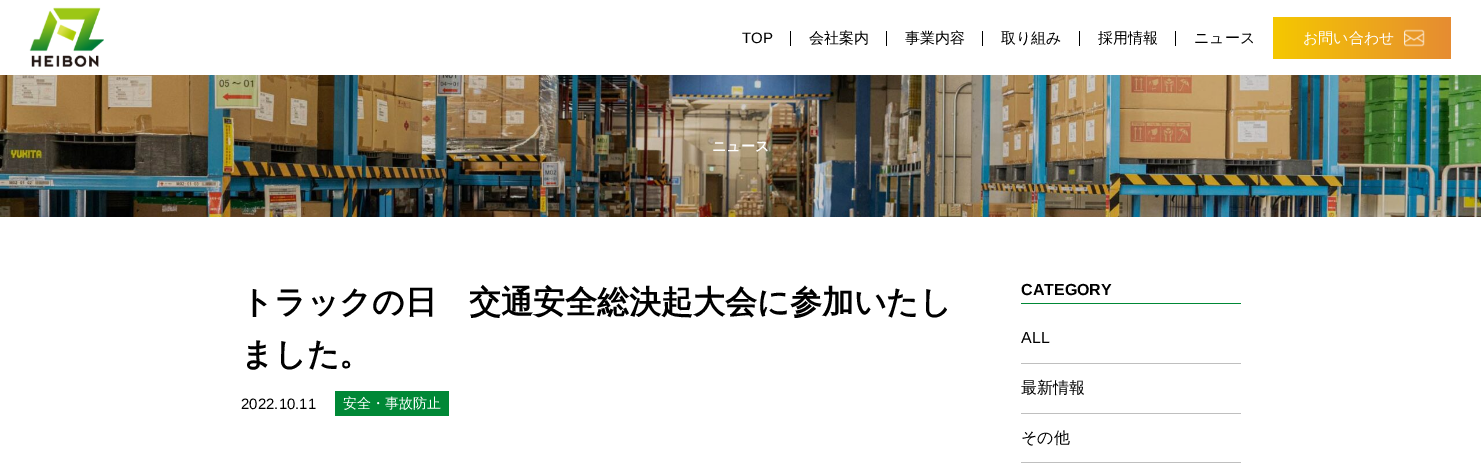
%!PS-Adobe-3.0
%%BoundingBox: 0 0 1481 469
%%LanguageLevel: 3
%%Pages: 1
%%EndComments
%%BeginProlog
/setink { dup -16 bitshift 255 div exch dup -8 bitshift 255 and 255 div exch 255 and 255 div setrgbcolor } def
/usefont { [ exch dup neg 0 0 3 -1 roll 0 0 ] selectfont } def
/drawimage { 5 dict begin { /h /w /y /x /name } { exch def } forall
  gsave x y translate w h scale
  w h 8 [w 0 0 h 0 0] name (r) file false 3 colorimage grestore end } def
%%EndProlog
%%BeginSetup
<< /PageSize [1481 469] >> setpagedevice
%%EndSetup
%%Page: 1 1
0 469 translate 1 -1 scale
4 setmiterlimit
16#FFFFFF setink
0 0 1481 469 rectfill
(img1.raw) 29 7 75 60 drawimage
/LiberationSans-Regular 15 usefont
16#000000 setink
742 43 moveto (TOP) show
790 31 1 15 rectfill
/WenQuanYiZenHei-Medium 15 usefont
809 43 moveto (会社案内) show
886 31 1 15 rectfill
905 43 moveto (事業内容) show
982 31 1 15 rectfill
1001 43 moveto (取り組み) show
1079 31 1 15 rectfill
1098 43 moveto (採用情報) show
1175 31 1 15 rectfill
1194 43 moveto (ニュース) show
gsave 1273 17 moveto 1451 17 lineto 1451 59 lineto 1273 59 lineto closepath clip newpath
<< /ShadingType 2 /ColorSpace /DeviceRGB /Coords [1273 38 1451 38] /Extend [true true] /Function << /FunctionType 2 /Domain [0 1] /C0 [0.961 0.784 0] /C1 [0.902 0.549 0.196] /N 1 >> >> shfill grestore
16#FFFFFF setink
1303 43 moveto (お問い合わせ) show
(img2.raw) 1404 29 21 18 drawimage
(img3.raw) 0 75 1481 142 drawimage
/WenQuanYiZenHei-Bold 14 usefont
712 151 moveto (ニュース) show
/WenQuanYiZenHei-Bold 32 usefont
16#000000 setink
241 313 moveto (トラックの日　交通安全総決起大会に参加いたし) show
241 365 moveto (ました。) show
/LiberationSans-Regular 15 usefont
241 409 moveto (2022.10.11) show
16#008836 setink
335 391 114 25 rectfill
/WenQuanYiZenHei-Medium 14 usefont
16#FFFFFF setink
343 408 moveto (安全・事故防止) show
16#008836 setink
1021 303 220 1 rectfill
/LiberationSans-Bold 16 usefont
16#000000 setink
1021 295 moveto (CATEGORY) show
16#BFBFBF setink
1021 363 220 1 rectfill
/LiberationSans-Regular 16 usefont
16#000000 setink
1021 343 moveto (ALL) show
16#BFBFBF setink
1021 413 220 1 rectfill
/WenQuanYiZenHei-Medium 16 usefont
16#000000 setink
1021 393 moveto (最新情報) show
16#BFBFBF setink
1021 462 220 1 rectfill
16#000000 setink
1021 443 moveto (その他) show
showpage
%%EOF
